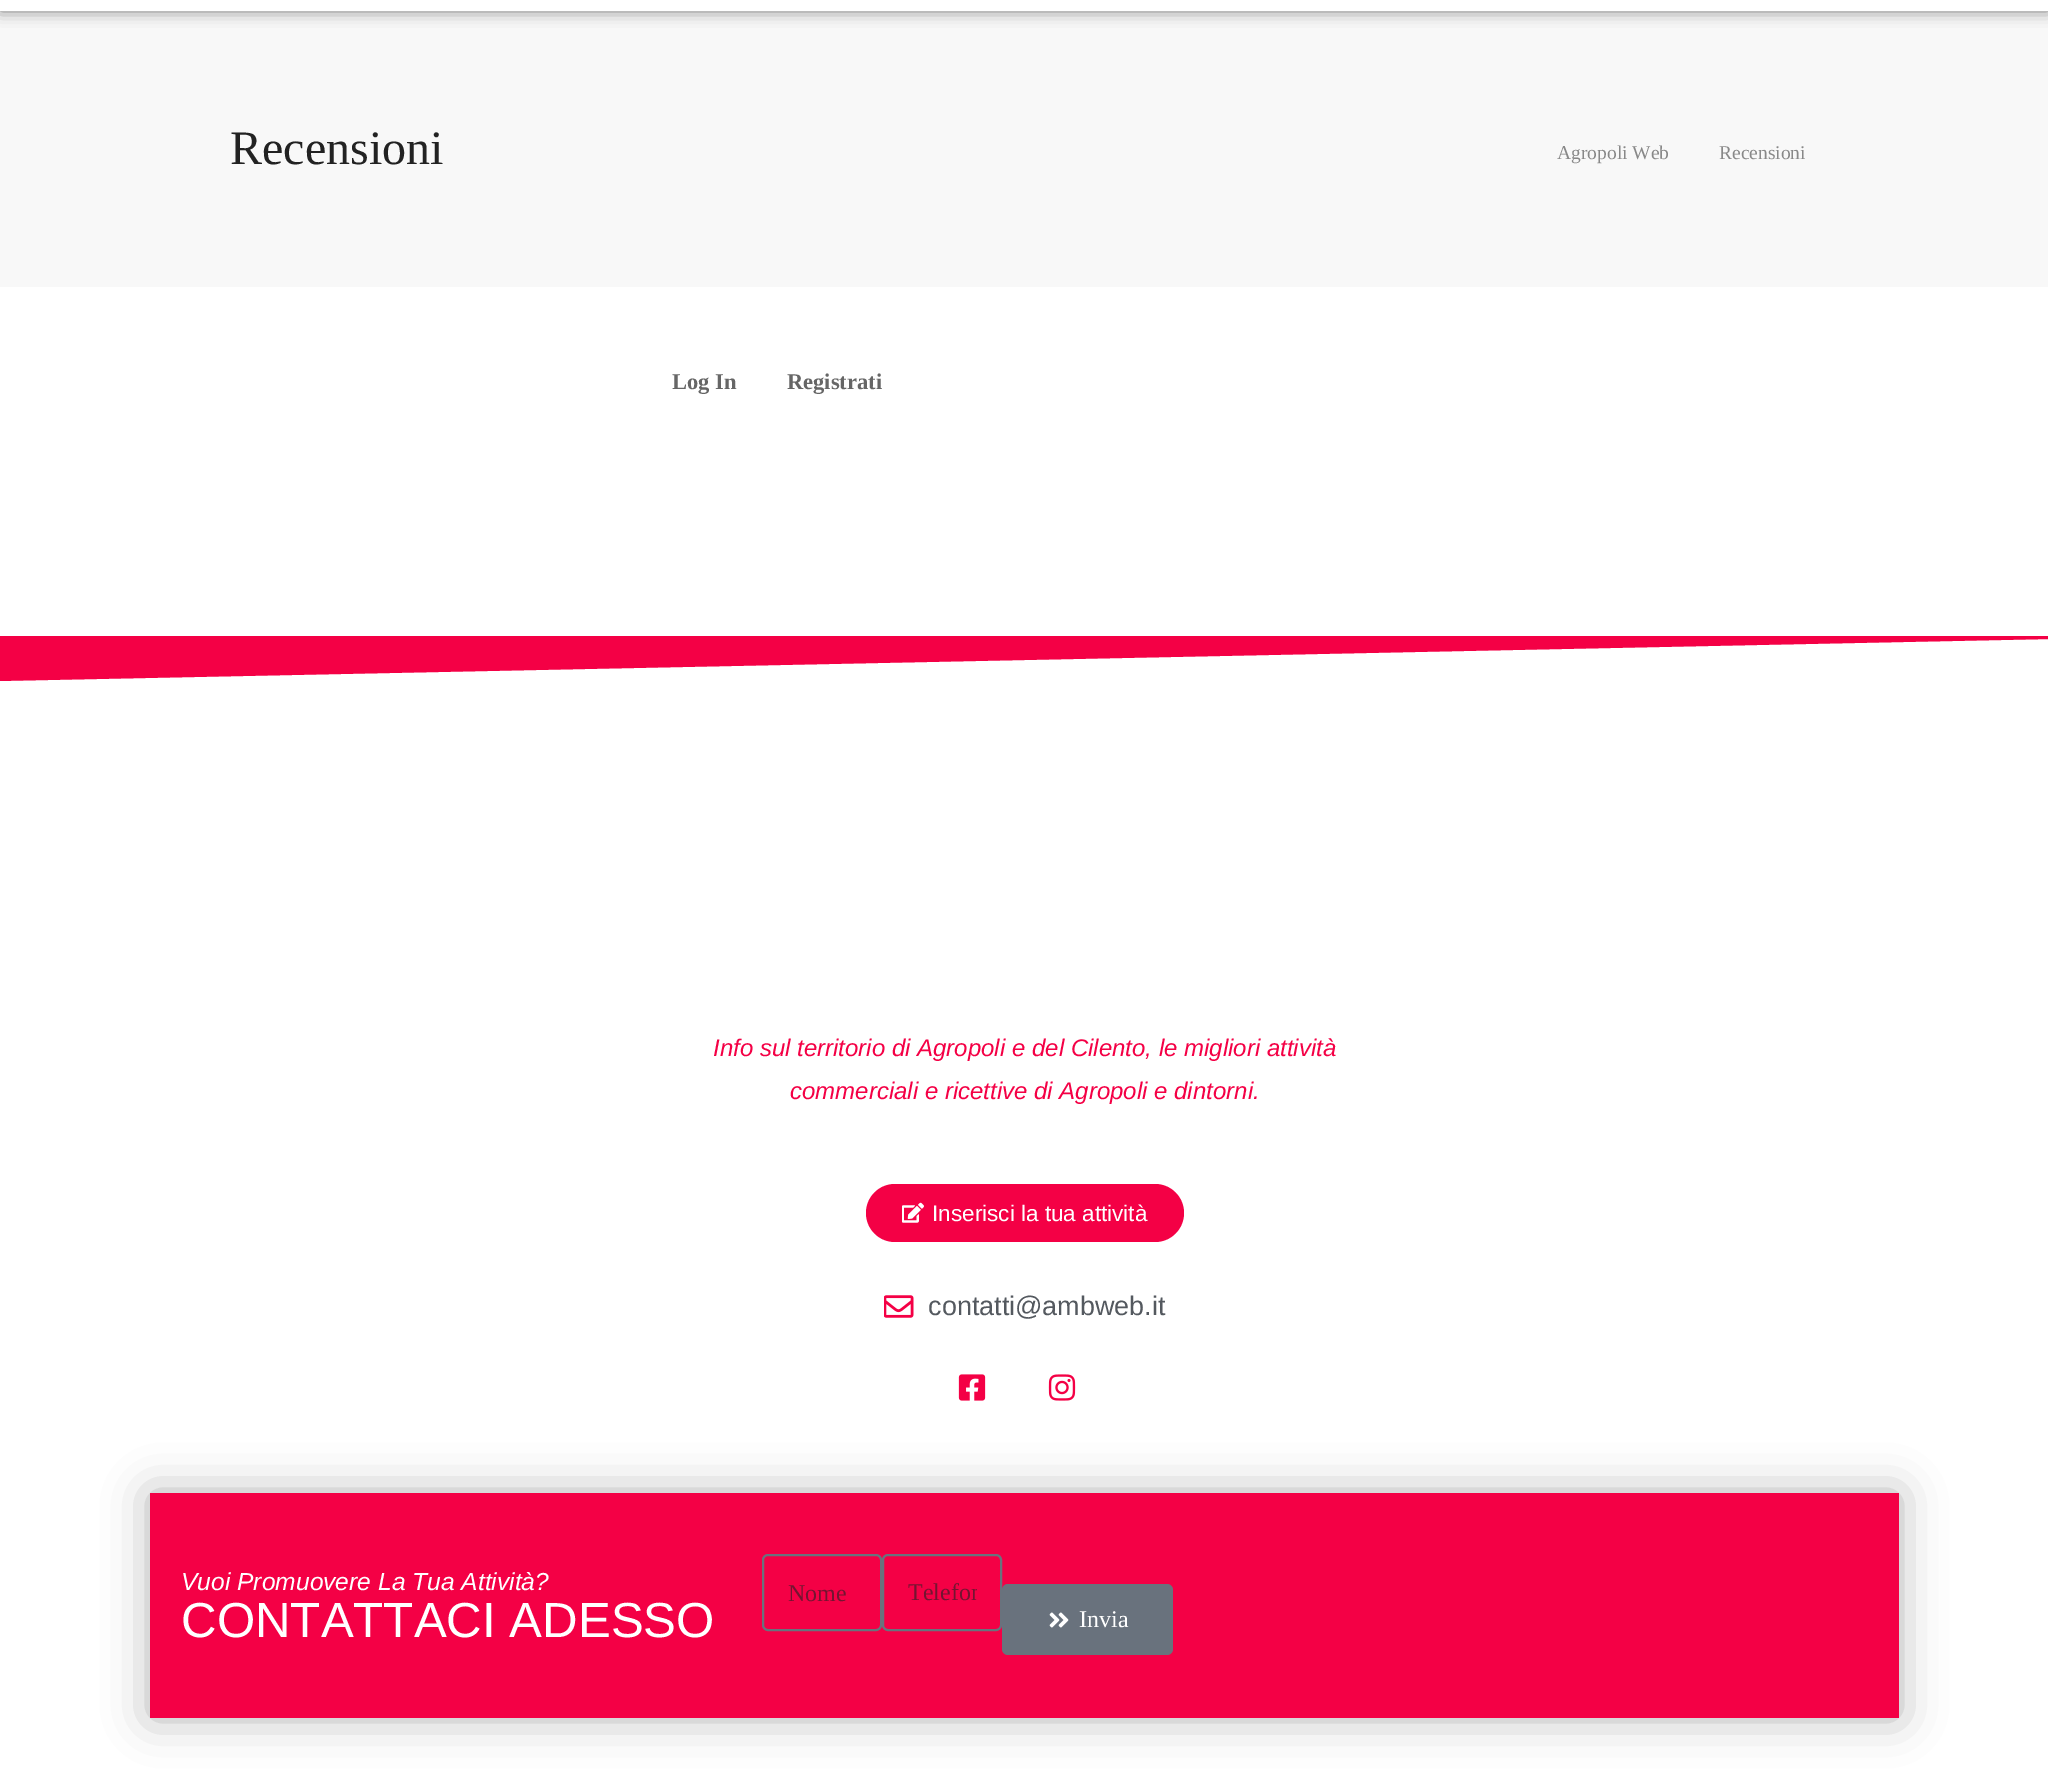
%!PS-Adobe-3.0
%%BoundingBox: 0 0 2048 1781
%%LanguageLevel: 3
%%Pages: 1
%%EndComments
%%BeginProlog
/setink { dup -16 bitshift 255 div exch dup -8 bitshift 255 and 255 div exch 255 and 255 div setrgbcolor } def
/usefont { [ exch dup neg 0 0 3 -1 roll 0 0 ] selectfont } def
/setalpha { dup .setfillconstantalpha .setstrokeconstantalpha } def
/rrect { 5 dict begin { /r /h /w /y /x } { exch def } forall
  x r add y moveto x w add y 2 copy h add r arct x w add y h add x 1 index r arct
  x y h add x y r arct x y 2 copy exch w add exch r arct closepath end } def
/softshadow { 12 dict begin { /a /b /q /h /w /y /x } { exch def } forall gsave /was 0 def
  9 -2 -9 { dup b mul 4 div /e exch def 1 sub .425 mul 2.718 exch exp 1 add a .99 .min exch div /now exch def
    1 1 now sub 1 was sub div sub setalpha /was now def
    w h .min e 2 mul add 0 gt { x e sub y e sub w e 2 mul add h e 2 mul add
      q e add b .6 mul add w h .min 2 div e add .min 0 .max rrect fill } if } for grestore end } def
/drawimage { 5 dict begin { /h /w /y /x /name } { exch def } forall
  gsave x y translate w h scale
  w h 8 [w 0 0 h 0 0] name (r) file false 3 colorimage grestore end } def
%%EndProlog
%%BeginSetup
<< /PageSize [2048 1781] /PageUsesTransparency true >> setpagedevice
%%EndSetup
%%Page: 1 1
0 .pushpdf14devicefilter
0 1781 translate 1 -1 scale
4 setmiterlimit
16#FFFFFF setink
0 0 2048 1781 rectfill
16#F8F8F8 setink
0 11 2048 276 rectfill
16#000000 setink
0 -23 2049 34 0 7.5 0.5 softshadow
16#FFFFFF setink
0 0 2048 11 rectfill
/LiberationSerif-Regular 48 usefont
16#222222 setink
230 164 moveto (Recensioni) show
/LiberationSerif-Regular 19.5 usefont
16#888888 setink
1557 159 moveto (Agropoli Web) show
1719 159 moveto (Recensioni) show
/LiberationSerif-Bold 22.5 usefont
16#666666 setink
672 389 moveto (Log In) show
787 389 moveto (Registrati) show
16#F40045 setink
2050 639 moveto 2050 636 lineto -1 636 lineto -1 681 lineto closepath fill
/LiberationSans-Italic 24 usefont
713 1056 moveto (Info sul territorio di Agropoli e del Cilento, le migliori attività) show
790 1099 moveto (commerciali e ricettive di Agropoli e dintorni.) show
866 1184 318 58 29 rrect fill
(img1.raw) 902 1202 22 21 drawimage
/LiberationSans-Regular 22.5 usefont
16#FFFFFF setink
932 1221 moveto (Inserisci la tua attività) show
(img2.raw) 884 1295 30 23 drawimage
/LiberationSans-Regular 27 usefont
16#54595F setink
928 1315 moveto (contatti@ambweb.it) show
(img3.raw) 958 1374 28 27 drawimage
(img4.raw) 1048 1374 28 27 drawimage
16#000000 setink
150 1493 1749 225 0 22.5 0.3 softshadow
16#F40045 setink
150 1493 1749 225 rectfill
/LiberationSans-Italic 24.6 usefont
16#FFFFFF setink
181 1590 moveto (Vuoi Promuovere La Tua Attività?) show
/LiberationSans-Regular 49.25 usefont
181 1637 moveto (CONTATTACI ADESSO) show
16#69727D setink
2 setlinewidth
763 1555 118 75 5 rrect stroke
/LiberationSerif-Regular 24 usefont
16#741431 setink
788 1601 moveto (Nome) show
16#69727D setink
883 1555 118 75 5 rrect stroke
gsave
908 1580 69 27 rectclip
16#741431 setink
908 1600 moveto (Telefon) show
grestore
1002 1584 171 71 6 rrect fill
(img5.raw) 1049 1612 20 16 drawimage
16#FFFFFF setink
1079 1627 moveto (Invia) show
.poppdf14devicefilter showpage
%%EOF
